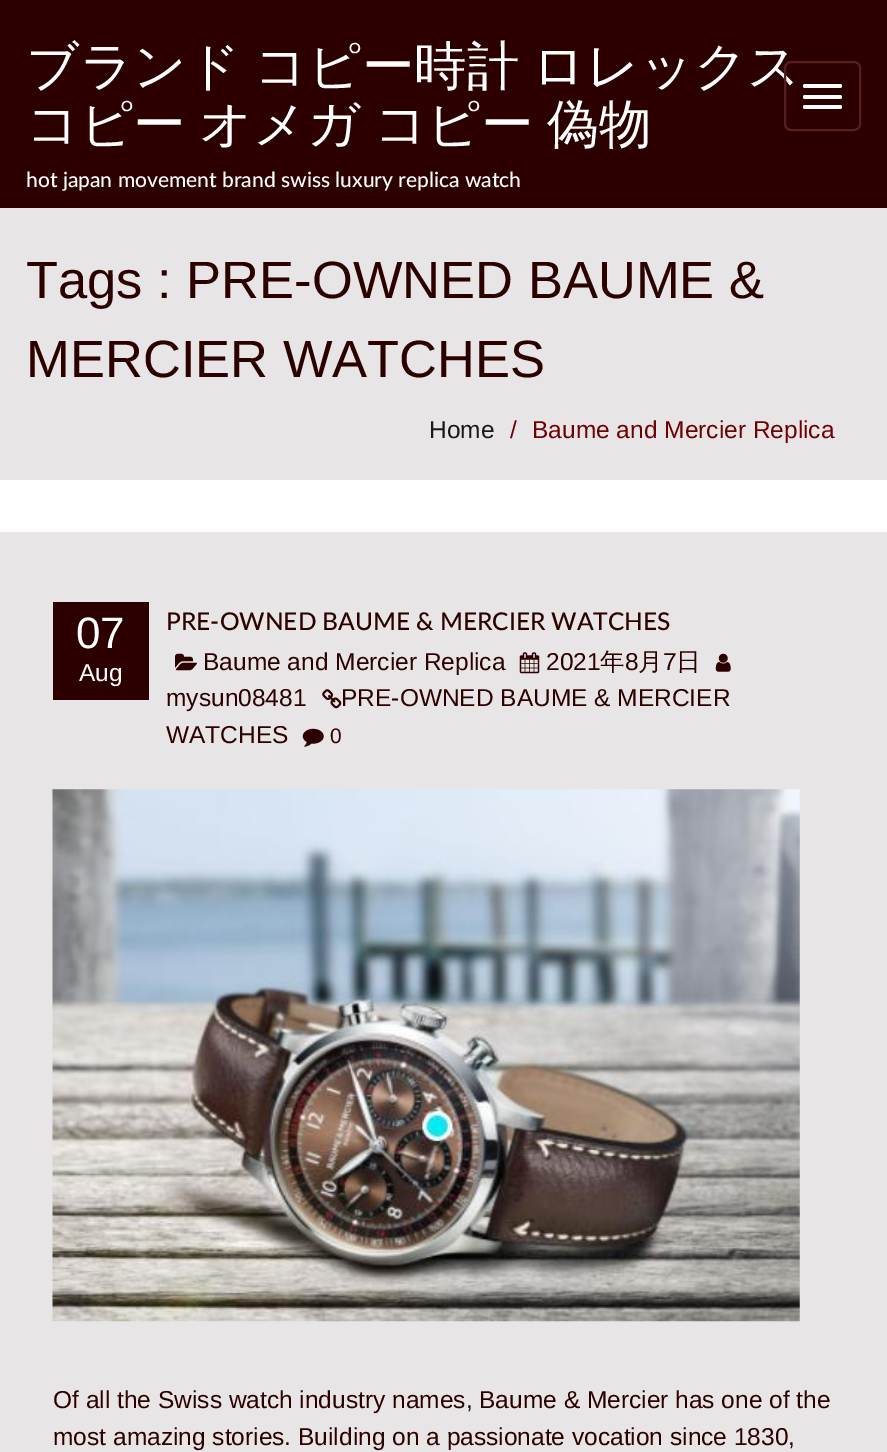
%!PS-Adobe-3.0
%%BoundingBox: 0 0 887 1452
%%LanguageLevel: 3
%%Pages: 1
%%EndComments
%%BeginProlog
/setink { dup -16 bitshift 255 div exch dup -8 bitshift 255 and 255 div exch 255 and 255 div setrgbcolor } def
/usefont { [ exch dup neg 0 0 3 -1 roll 0 0 ] selectfont } def
/rrect { 5 dict begin { /r /h /w /y /x } { exch def } forall
  x r add y moveto x w add y 2 copy h add r arct x w add y h add x 1 index r arct
  x y h add x y r arct x y 2 copy exch w add exch r arct closepath end } def
/drawimage { 5 dict begin { /h /w /y /x /name } { exch def } forall
  gsave x y translate w h scale
  w h 8 [w 0 0 h 0 0] name (r) file false 3 colorimage grestore end } def
%%EndProlog
%%BeginSetup
<< /PageSize [887 1452] >> setpagedevice
%%EndSetup
%%Page: 1 1
0 1452 translate 1 -1 scale
4 setmiterlimit
16#FFFFFF setink
0 0 887 1452 rectfill
16#2D0000 setink
0 0 887 208 rectfill
/WenQuanYiZenHei-Medium 52.5 usefont
16#FFFFFF setink
26 84 moveto -2.5 0 32 (ブランド コピー時計 ロレックス) widthshow
26 142 moveto -2.5 0 32 (コピー オメガ コピー 偽物) widthshow
/Lato-Medium 21 usefont
26 187 moveto (hot japan movement brand swiss luxury replica watch) show
16#551F1F setink
2 setlinewidth
785 62 75 68 6 rrect stroke
16#FFFFFF setink
803 84 39 4 2 rrect fill
803 95 39 4 2 rrect fill
803 105 39 4 2 rrect fill
16#E7E5E5 setink
0 208 887 272 rectfill
/LiberationSans-Regular 52.5 usefont
16#2D0000 setink
26 298 moveto (Tags : PRE-OWNED BAUME &) show
26 377 moveto (MERCIER WATCHES) show
/LiberationSans-Regular 24.5 usefont
16#191919 setink
429 438 moveto (Home) show
16#6E0202 setink
510 438 moveto (/) show
532 438 moveto (Baume and Mercier Replica) show
16#E7E5E5 setink
0 532 887 920 rectfill
16#2D0000 setink
53 602 96 98 rectfill
/LiberationSans-Regular 44 usefont
16#FFFFFF setink
76 648 moveto (07) show
/LiberationSans-Regular 24.5 usefont
79 681 moveto (Aug) show
/Lato-Medium 24.5 usefont
16#2D0000 setink
166 630 moveto (PRE-OWNED BAUME & MERCIER WATCHES) show
(img1.raw) 175 653 22 18 drawimage
/LiberationSans-Regular 24.5 usefont
203 670 moveto (Baume and Mercier Replica) show
(img2.raw) 519 652 21 22 drawimage
546 670 moveto (2021) show
/WenQuanYiZenHei-Medium 24.5 usefont
600 670 moveto (年) show
/LiberationSans-Regular 24.5 usefont
625 670 moveto (8) show
/WenQuanYiZenHei-Medium 24.5 usefont
638 670 moveto (月) show
/LiberationSans-Regular 24.5 usefont
663 670 moveto (7) show
/WenQuanYiZenHei-Medium 24.5 usefont
676 670 moveto (日) show
(img3.raw) 715 653 16 19 drawimage
/LiberationSans-Regular 24.5 usefont
166 706 moveto (mysun08481) show
(img4.raw) 322 689 20 20 drawimage
341 706 moveto (PRE-OWNED BAUME & MERCIER) show
166 743 moveto (WATCHES) show
(img5.raw) 302 728 22 19 drawimage
/LiberationSans-Regular 21 usefont
330 743 moveto (0) show
(img6.raw) 52 789 748 533 drawimage
/LiberationSans-Regular 24.5 usefont
53 1408 moveto (Of all the Swiss watch industry names, Baume & Mercier has one of the) show
53 1445 moveto (most amazing stories. Building on a passionate vocation since 1830,) show
showpage
%%EOF
